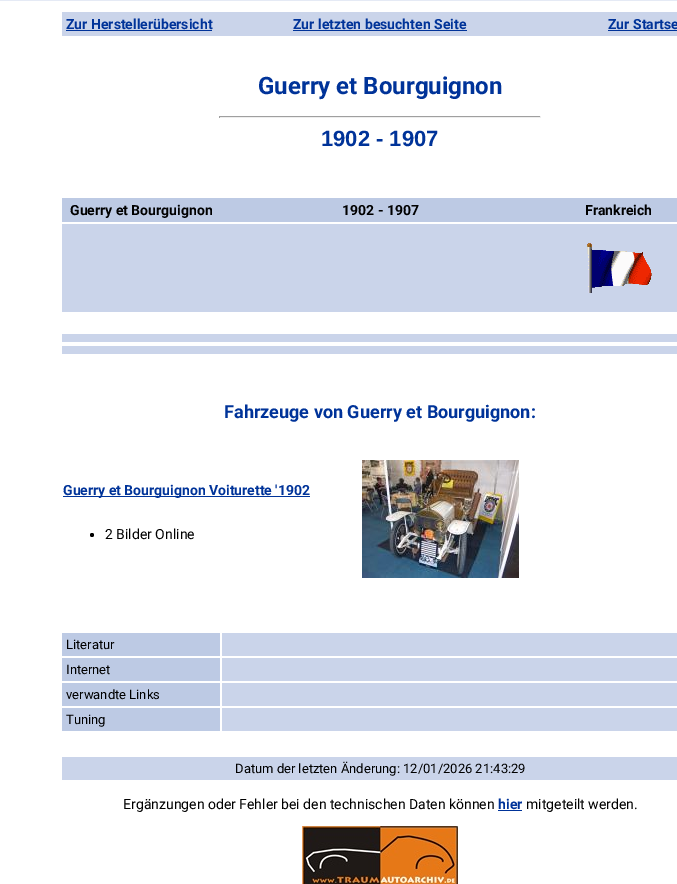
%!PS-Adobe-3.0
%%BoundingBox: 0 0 677 884
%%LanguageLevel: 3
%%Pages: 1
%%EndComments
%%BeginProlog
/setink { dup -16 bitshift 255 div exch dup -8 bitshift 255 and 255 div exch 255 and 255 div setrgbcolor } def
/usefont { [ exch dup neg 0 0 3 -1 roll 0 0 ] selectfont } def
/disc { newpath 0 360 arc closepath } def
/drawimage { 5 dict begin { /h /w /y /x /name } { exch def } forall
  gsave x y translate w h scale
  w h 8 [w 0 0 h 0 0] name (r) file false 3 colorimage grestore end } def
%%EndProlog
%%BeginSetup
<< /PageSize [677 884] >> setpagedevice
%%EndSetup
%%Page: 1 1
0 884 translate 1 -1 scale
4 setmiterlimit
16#FFFFFF setink
0 0 677 884 rectfill
16#E5EAF5 setink
0 0 677 1 rectfill
16#CAD4EA setink
62 12 615 24 rectfill
/Roboto-Bold 14 usefont
16#003399 setink
66 29 moveto (Zur Herstellerübersicht) show
66 30 146 1 rectfill
293 29 moveto (Zur letzten besuchten Seite) show
293 30 174 1 rectfill
608 29 moveto (Zur Startse) show
608 30 69 1 rectfill
/Roboto-Bold 24 usefont
258 94 moveto (Guerry et Bourguignon) show
[
    [219 116 322 1 16#9F9F9F]
    [540 116 1 2 16#EEEEEE]
    [219 117 322 1 16#EEEEEE]
    [219 116 1 2 16#9F9F9F]
] { aload pop setink rectfill } forall
/LiberationSans-Bold 22 usefont
16#003399 setink
321 146 moveto (1902 - 1907) show
16#BDCAE4 setink
62 198 615 24 rectfill
/Roboto-Bold 14 usefont
16#000000 setink
[
    [(Guerry et Bourguignon) 70 215]
    [(1902 - 1907) 342 215]
    [(Frankreich) 585 215]
] { aload pop moveto show } forall
16#CAD4EA setink
62 224 615 88 rectfill
(img1.raw) 587 243 65 50 drawimage
62 334 615 8 rectfill
62 346 615 8 rectfill
/Roboto-Bold 18 usefont
16#003399 setink
224 418 moveto (Fahrzeuge von Guerry et Bourguignon:) show
63 496 247 1 rectfill
/Roboto-Bold 14 usefont
63 495 moveto (Guerry et Bourguignon Voiturette '1902) show
16#000000 setink
92 535 2 disc fill
/Roboto-Regular 14 usefont
105 539 moveto (2 Bilder Online) show
(img2.raw) 362 460 157 118 drawimage
16#BDCAE4 setink
62 633 158 23 rectfill
/Roboto-Regular 13 usefont
16#000000 setink
66 649 moveto (Literatur) show
16#CAD4EA setink
222 633 455 23 rectfill
16#BDCAE4 setink
62 658 158 23 rectfill
16#000000 setink
66 674 moveto (Internet) show
16#CAD4EA setink
222 658 455 23 rectfill
16#BDCAE4 setink
62 683 158 23 rectfill
16#000000 setink
66 699 moveto (verwandte Links) show
16#CAD4EA setink
222 683 455 23 rectfill
16#BDCAE4 setink
62 708 158 23 rectfill
16#000000 setink
66 724 moveto (Tuning) show
16#CAD4EA setink
222 708 455 23 rectfill
62 757 615 23 rectfill
16#000000 setink
235 773 moveto (Datum der letzten Änderung: 12/01/2026 21:43:29) show
/Roboto-Regular 14 usefont
123 809 moveto (Ergänzungen oder Fehler bei den technischen Daten können) show
/Roboto-Bold 14 usefont
16#003399 setink
498 809 moveto (hier) show
498 810 24 1 rectfill
/Roboto-Regular 14 usefont
16#000000 setink
526 809 moveto (mitgeteilt werden.) show
(img3.raw) 302 826 156 58 drawimage
showpage
%%EOF
